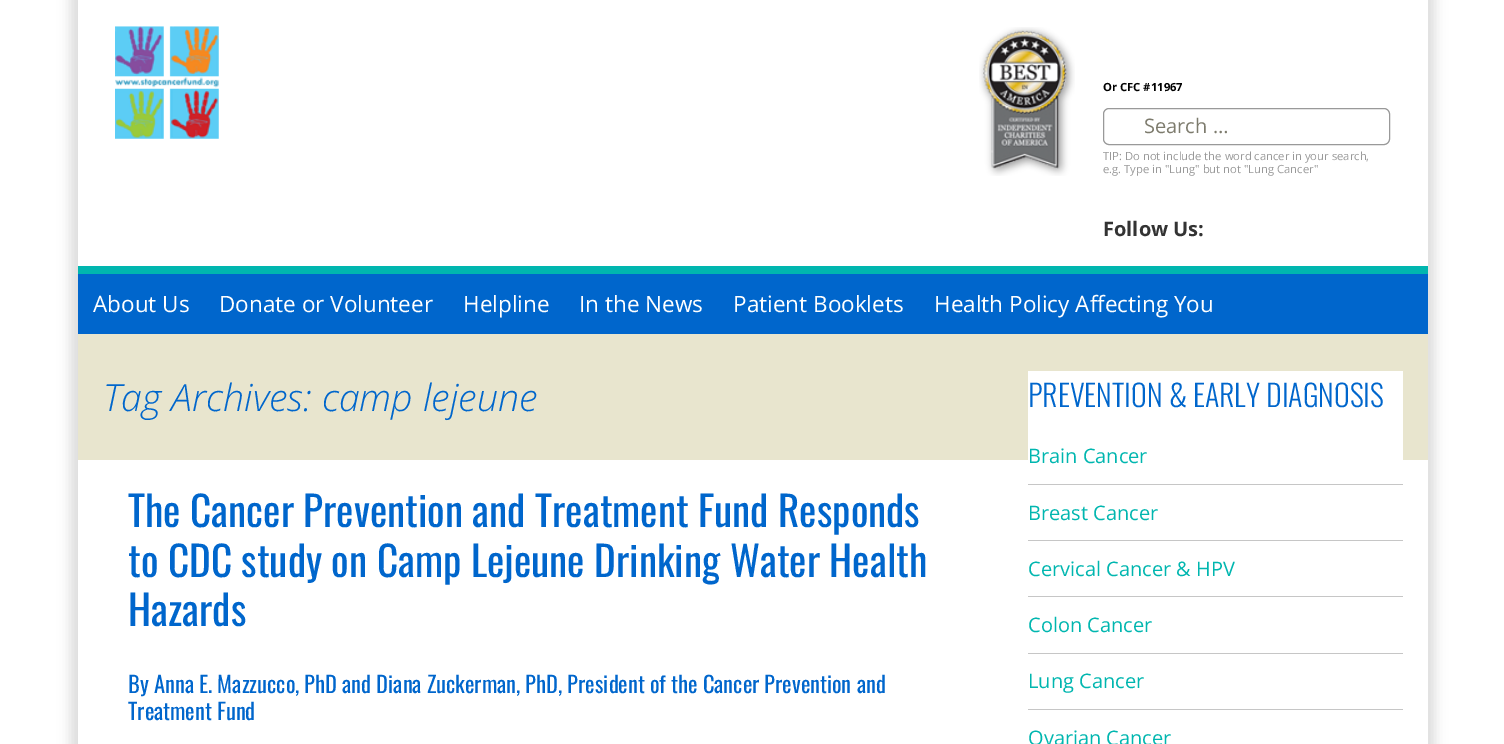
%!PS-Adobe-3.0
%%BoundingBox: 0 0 1504 744
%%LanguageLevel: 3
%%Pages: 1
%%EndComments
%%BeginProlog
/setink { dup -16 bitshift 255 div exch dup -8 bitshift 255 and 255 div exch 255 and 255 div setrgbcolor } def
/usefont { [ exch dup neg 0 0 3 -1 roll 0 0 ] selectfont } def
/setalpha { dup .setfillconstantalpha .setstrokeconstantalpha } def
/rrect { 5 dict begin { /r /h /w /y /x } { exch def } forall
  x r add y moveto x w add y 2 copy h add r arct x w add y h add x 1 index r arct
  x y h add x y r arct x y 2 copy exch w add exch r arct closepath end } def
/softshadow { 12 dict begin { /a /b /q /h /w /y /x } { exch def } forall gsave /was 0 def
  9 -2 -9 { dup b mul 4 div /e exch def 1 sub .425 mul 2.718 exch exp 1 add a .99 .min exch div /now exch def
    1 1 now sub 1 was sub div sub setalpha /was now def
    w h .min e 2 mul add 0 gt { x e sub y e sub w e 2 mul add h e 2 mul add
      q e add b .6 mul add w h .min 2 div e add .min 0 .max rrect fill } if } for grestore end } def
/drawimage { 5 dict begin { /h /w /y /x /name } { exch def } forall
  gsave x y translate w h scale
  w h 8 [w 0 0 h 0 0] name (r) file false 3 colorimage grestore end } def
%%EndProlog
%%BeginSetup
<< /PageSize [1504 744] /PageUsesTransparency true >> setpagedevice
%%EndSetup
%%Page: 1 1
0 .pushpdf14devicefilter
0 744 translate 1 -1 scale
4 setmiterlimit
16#FFFFFF setink
0 0 1504 744 rectfill
16#DCDCDC setink
70 -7 1365 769 0 6 1 softshadow
16#FFFFFF setink
78 0 1350 744 rectfill
(img1.raw) 115 26 104 113 drawimage
(img2.raw) 979 27 96 149 drawimage
/OpenSans-Bold 11.25 usefont
16#000000 setink
1103 91 moveto (Or CFC #11967) show
16#999999 setink
1103.5 108.5 286 36 5.5 rrect stroke
/OpenSans-Regular 20 usefont
16#7D7B6D setink
1144 133 moveto (Search …) show
/OpenSans-Regular 11.25 usefont
16#999999 setink
1103 160 moveto (TIP: Do not include the word cancer in your search,) show
1103 173 moveto (e.g. Type in "Lung" but not "Lung Cancer") show
/OpenSans-Bold 20 usefont
16#333333 setink
1103 236 moveto (Follow Us:) show
16#00B6AF setink
78 266 1350 8 rectfill
16#0066CC setink
78 274 1350 60 rectfill
/OpenSans-Regular 22.5 usefont
16#FFFFFF setink
[
    [(About Us) 93 312]
    [(Donate or Volunteer) 219 312]
    [(Helpline) 463 312]
    [(In the News) 579 312]
    [(Patient Booklets) 733 312]
    [(Health Policy Affecting You) 934 312]
] { aload pop moveto show } forall
16#E8E5CE setink
78 334 1350 126 rectfill
/OpenSans-LightItalic 37.5 usefont
16#0066CC setink
103 411 moveto (Tag Archives: camp lejeune) show
/Oswald-Regular 41.25 usefont
[
    [(The Cancer Prevention and Treatment Fund Responds) 128 527]
    [(to CDC study on Camp Lejeune Drinking Water Health) 128 577]
    [(Hazards) 128 626]
] { aload pop moveto show } forall
/Oswald-Regular 22.5 usefont
128 693 moveto (By Anna E. Mazzucco, PhD and Diana Zuckerman, PhD, President of the Cancer Prevention and) show
128 720 moveto (Treatment Fund) show
16#FFFFFF setink
1028 371 375 89 rectfill
/Oswald-Light 30 usefont
16#0066CC setink
1028 407 moveto (PREVENTION & EARLY DIAGNOSIS) show
16#C6C6C6 setink
1028 484 375 1 rectfill
/OpenSans-Regular 20 usefont
16#00B6AF setink
1028 463 moveto (Brain Cancer) show
16#C6C6C6 setink
1028 540 375 1 rectfill
16#00B6AF setink
1028 520 moveto (Breast Cancer) show
16#C6C6C6 setink
1028 596 375 1 rectfill
16#00B6AF setink
1028 576 moveto (Cervical Cancer & HPV) show
16#C6C6C6 setink
1028 653 375 1 rectfill
16#00B6AF setink
1028 632 moveto (Colon Cancer) show
16#C6C6C6 setink
1028 709 375 1 rectfill
16#00B6AF setink
1028 688 moveto (Lung Cancer) show
1028 745 moveto (Ovarian Cancer) show
.poppdf14devicefilter showpage
%%EOF
